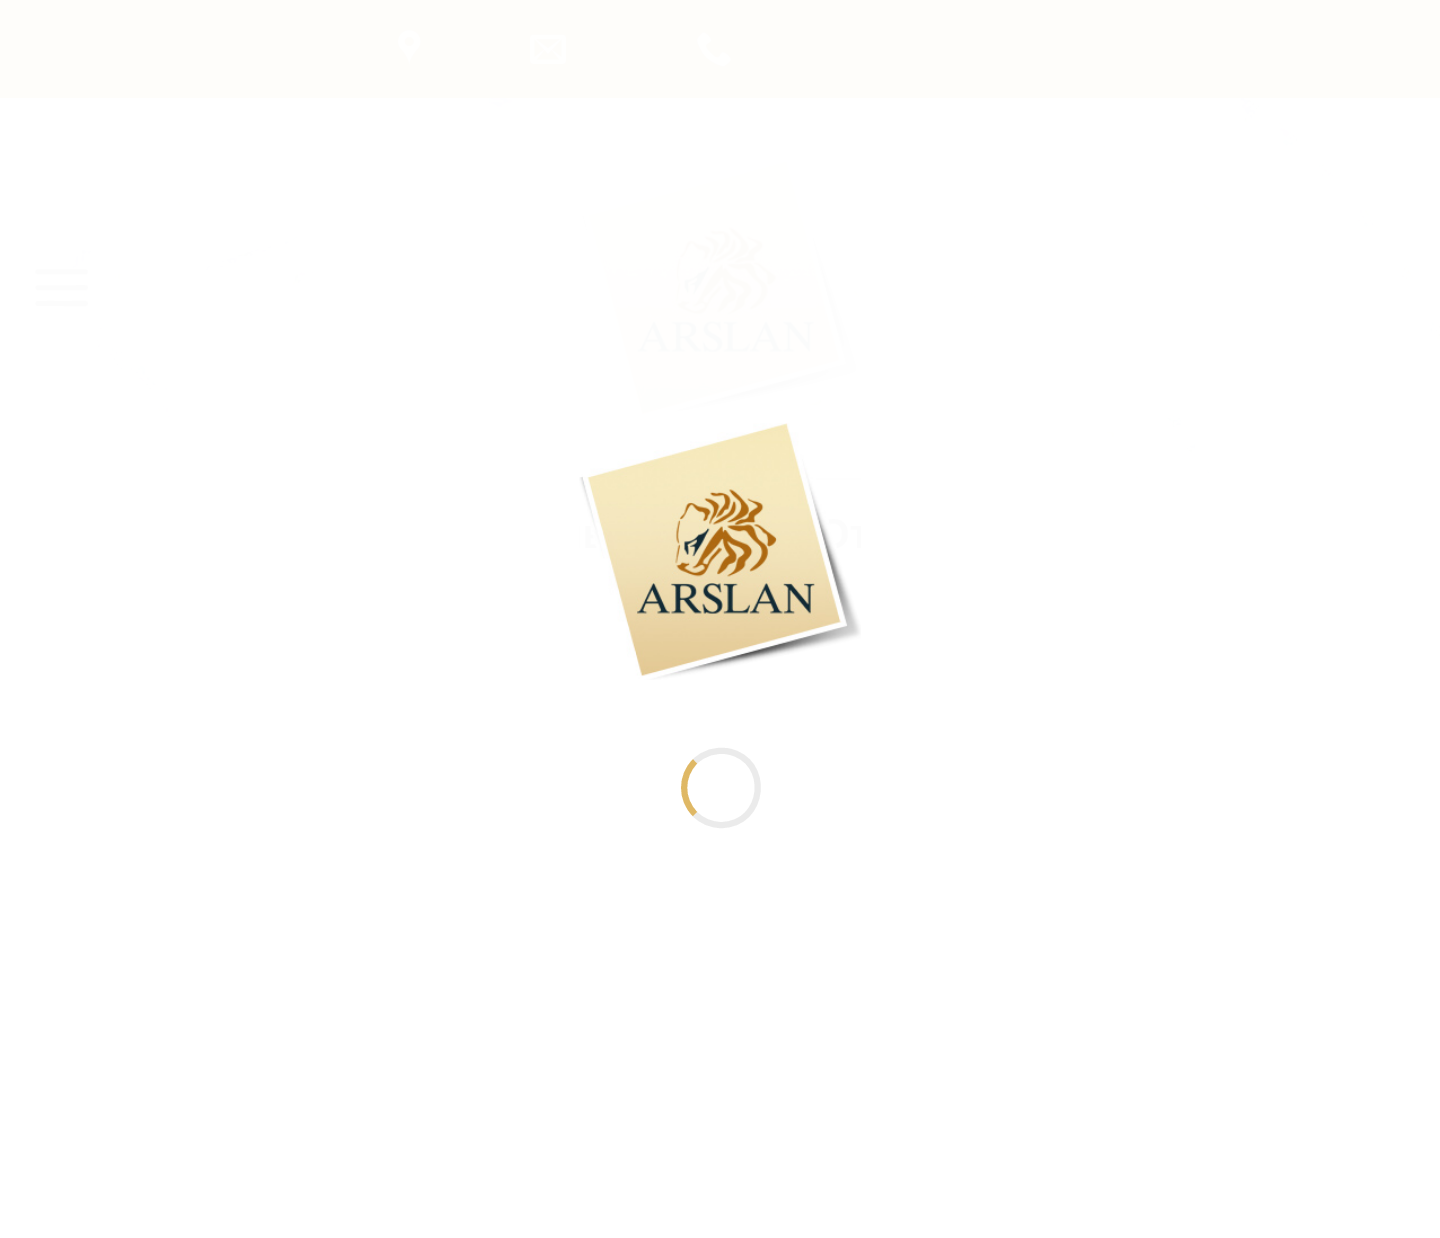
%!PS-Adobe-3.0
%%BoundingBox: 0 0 1440 1238
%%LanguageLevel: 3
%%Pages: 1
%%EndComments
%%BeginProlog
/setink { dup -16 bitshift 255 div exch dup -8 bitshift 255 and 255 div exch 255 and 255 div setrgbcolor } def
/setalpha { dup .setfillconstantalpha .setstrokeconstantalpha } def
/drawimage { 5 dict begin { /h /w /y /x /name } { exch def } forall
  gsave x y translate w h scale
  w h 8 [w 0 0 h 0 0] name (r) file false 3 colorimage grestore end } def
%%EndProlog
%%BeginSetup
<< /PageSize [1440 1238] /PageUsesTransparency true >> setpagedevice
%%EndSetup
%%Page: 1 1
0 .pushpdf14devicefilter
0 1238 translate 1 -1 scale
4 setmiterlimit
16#FFFFFF setink
0 0 1440 1238 rectfill
16#FEFDFA setink
0 0 1440 98 rectfill
(img1.raw) 398 30 23 36 drawimage
(img2.raw) 530 34 36 30 drawimage
(img3.raw) 697 32 34 35 drawimage
(img4.raw) 0 98 1440 380 drawimage
(img5.raw) 35 269 53 38 drawimage
(img6.raw) 576 150 288 276 drawimage
(img7.raw) 579 423 282 257 drawimage
0.08 setalpha
16#000000 setink
6 setlinewidth
695 761.5 moveto 703.5 753 716 749 728.5 751.5 curveto 771.5 760 765.5 825 721 825 curveto 711.5 825 701.5 821 695 814 curveto stroke
1 setalpha
16#DFB865 setink
695 814 moveto 680.5 799.5 680.5 776 695 761.5 curveto stroke
.poppdf14devicefilter showpage
%%EOF
